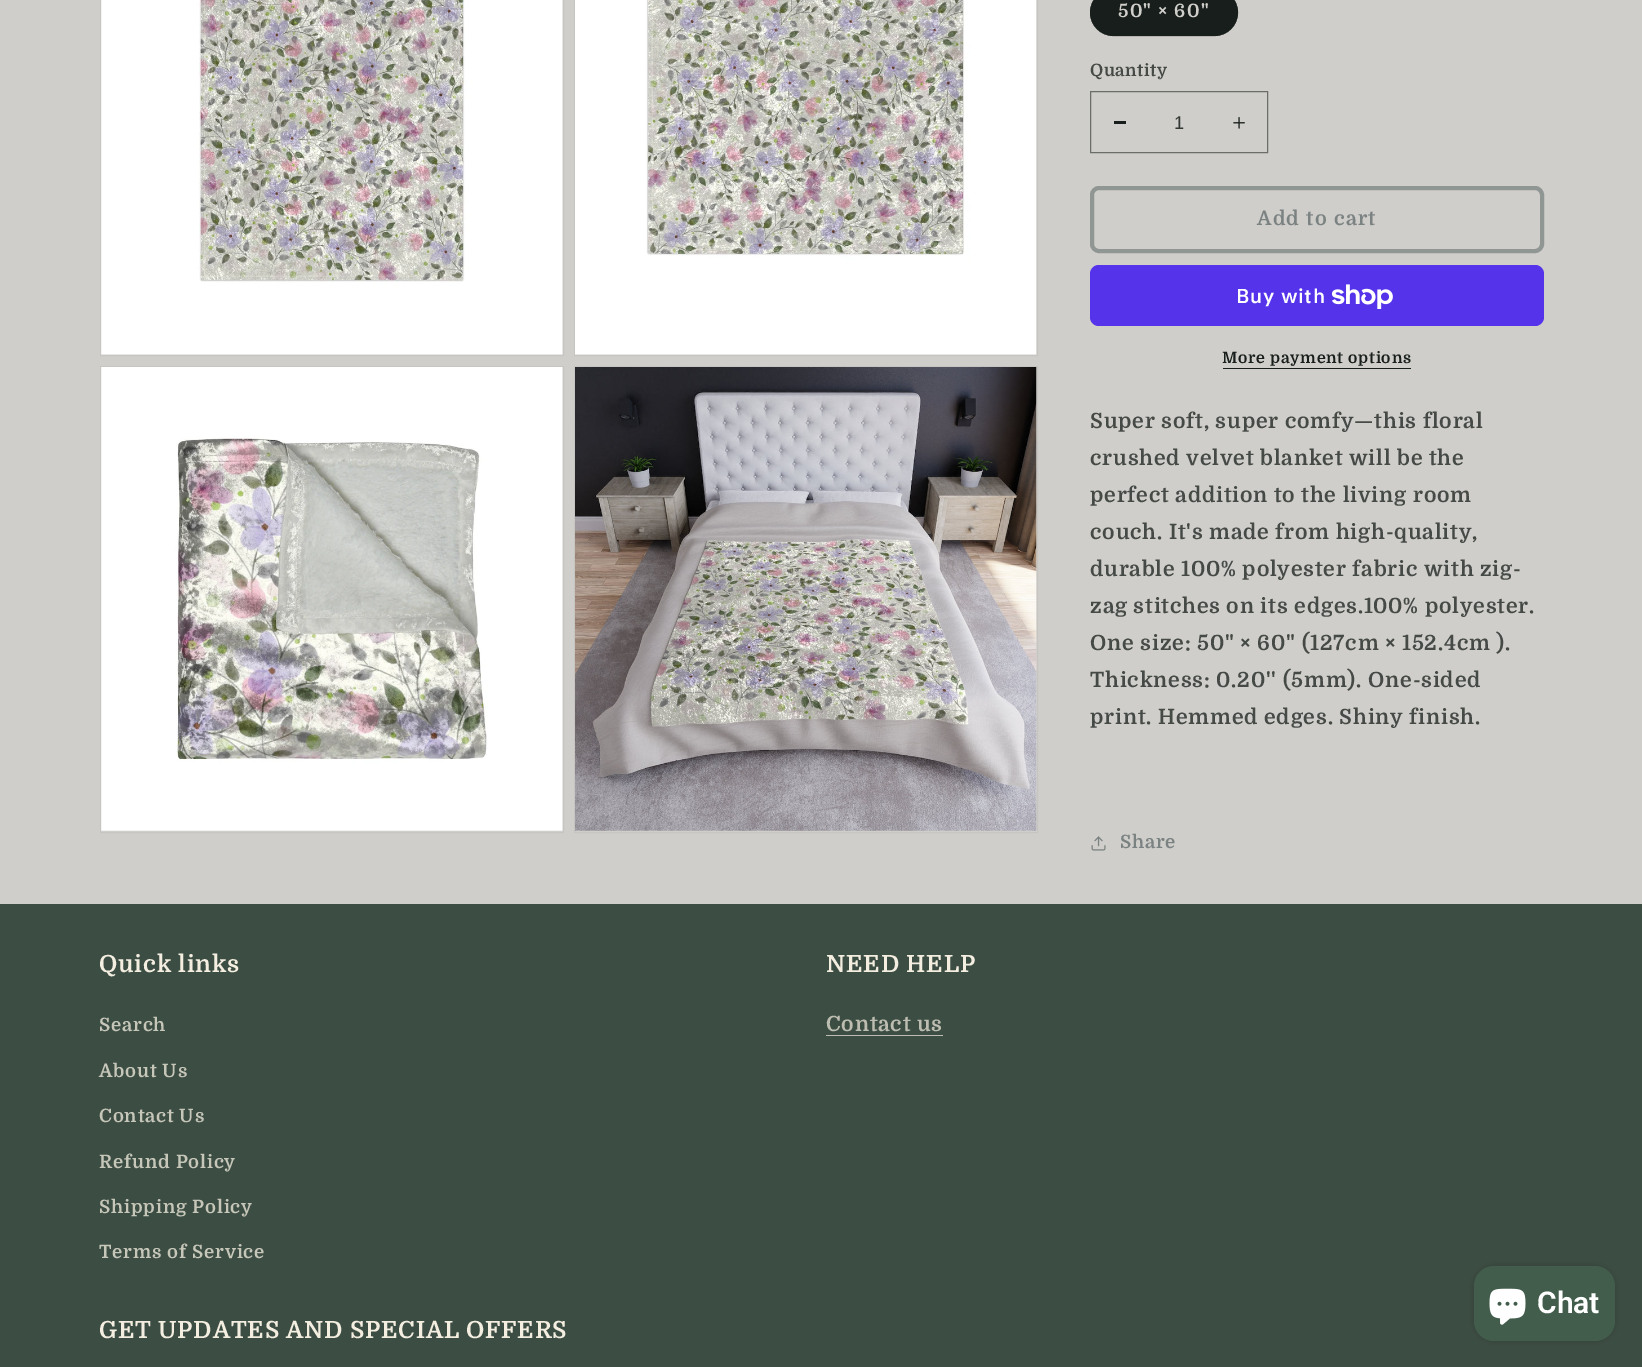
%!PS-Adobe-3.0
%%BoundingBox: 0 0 1642 1367
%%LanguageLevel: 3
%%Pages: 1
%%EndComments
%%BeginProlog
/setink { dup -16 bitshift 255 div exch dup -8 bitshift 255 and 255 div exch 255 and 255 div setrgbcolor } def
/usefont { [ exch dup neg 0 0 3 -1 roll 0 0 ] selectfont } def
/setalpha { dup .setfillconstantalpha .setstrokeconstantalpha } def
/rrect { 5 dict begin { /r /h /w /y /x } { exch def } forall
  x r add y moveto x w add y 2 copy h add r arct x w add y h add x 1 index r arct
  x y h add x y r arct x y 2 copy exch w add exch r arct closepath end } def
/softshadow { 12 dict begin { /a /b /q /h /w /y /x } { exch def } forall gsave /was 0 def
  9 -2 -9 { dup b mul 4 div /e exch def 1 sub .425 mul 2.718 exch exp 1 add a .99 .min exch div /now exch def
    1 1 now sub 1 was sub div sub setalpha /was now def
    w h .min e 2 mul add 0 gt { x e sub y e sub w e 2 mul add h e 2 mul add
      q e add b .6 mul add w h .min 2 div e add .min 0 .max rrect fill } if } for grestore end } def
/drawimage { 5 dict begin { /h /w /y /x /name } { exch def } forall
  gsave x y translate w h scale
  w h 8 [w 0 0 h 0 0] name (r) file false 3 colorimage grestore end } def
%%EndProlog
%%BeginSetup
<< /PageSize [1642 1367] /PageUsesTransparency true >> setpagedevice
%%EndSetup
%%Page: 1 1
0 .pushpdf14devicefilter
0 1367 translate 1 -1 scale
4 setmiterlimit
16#D0CECA setink
0 0 1642 1367 rectfill
16#C7C5C1 setink
100.5 -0.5 463 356 rectstroke
(img1.raw) 101 0 462 355 drawimage
574.5 -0.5 463 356 rectstroke
(img2.raw) 575 0 462 355 drawimage
100.5 366.5 463 466 rectstroke
(img3.raw) 101 367 462 464 drawimage
574.5 366.5 463 466 rectstroke
(img4.raw) 575 367 462 464 drawimage
16#171E1B setink
1090 -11 148 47 23.5 rrect fill
0.55 setalpha
1090.5 -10.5 147 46 23 rrect stroke
/Domine-Bold 18.4 usefont
1 setalpha
16#D0CECA setink
1118 17 moveto 1.25 0 (50" × 60") ashow
/Domine-Bold 17 usefont
16#454A47 setink
1090 76 moveto 0.5 0 (Quantity) ashow
16#171E1B setink
1114 121 12 3 rectfill
(img5.raw) 1233 117 12 12 drawimage
16#6A6D6A setink
1090.5 91.5 177 61 rectstroke
/LiberationSans-Regular 18.4 usefont
16#333835 setink
1174 129 moveto (1) show
16#909694 setink
4 setlinewidth
1092 188 450 63 7 rrect stroke
/Domine-Bold 19.75 usefont
16#7B8382 setink
1257 225 moveto 1.25 0 (Add to cart) ashow
16#5433EB setink
1090 265 454 61 9 rrect fill
/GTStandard-SemiBold 20 usefont
16#FFFFFF setink
1236 303 moveto 0.8 0 (Buy with) ashow
(img6.raw) 1331 284 62 25 drawimage
/Domine-Bold 15.75 usefont
16#171E1B setink
1222 363 moveto 0.7 0 (More payment options) ashow
1223 368 188 1 rectfill
/Domine-Bold 21 usefont
16#454A47 setink
1090 428 moveto 0.8 0 (Super soft, super comfy—this floral) ashow
1090 465 moveto 0.8 0 (crushed velvet blanket will be the) ashow
1090 502 moveto 0.8 0 (perfect addition to the living room) ashow
1090 539 moveto 0.8 0 (couch. It's made from high-quality,) ashow
1090 576 moveto 0.8 0 (durable 100% polyester fabric with zig-) ashow
1090 613 moveto 0.8 0 (zag stitches on its edges.100% polyester.) ashow
1090 650 moveto 0.8 0 (One size: 50" × 60" \(127cm × 152.4cm \).) ashow
1090 687 moveto 0.8 0 (Thickness: 0.20'' \(5mm\). One-sided) ashow
1090 724 moveto 0.8 0 (print. Hemmed edges. Shiny finish.) ashow
(img7.raw) 1091 836 15 15 drawimage
/Domine-Bold 18.4 usefont
16#7B8382 setink
1120 848 moveto 0.8 0 (Share) ashow
16#3C4D44 setink
0 904 1642 463 rectfill
/Domine-Bold 23.6 usefont
16#F4EEE0 setink
99 972 moveto 0.8 0 (Quick links) ashow
/Domine-Bold 18.4 usefont
16#C6C6B9 setink
99 1031 moveto 0.8 0 (Search) ashow
99 1077 moveto 0.8 0 (About Us) ashow
99 1122 moveto 0.8 0 (Contact Us) ashow
99 1168 moveto 0.8 0 (Refund Policy) ashow
99 1213 moveto 0.8 0 (Shipping Policy) ashow
99 1258 moveto 0.8 0 (Terms of Service) ashow
/Domine-Bold 23.6 usefont
16#F4EEE0 setink
826 972 moveto 0.8 0 (NEED HELP) ashow
/Domine-Bold 21 usefont
16#BDBEB1 setink
826 1031 moveto 0.8 0 (Contact us) ashow
826 1035 117 1 rectfill
/Domine-Bold 23.6 usefont
16#F4EEE0 setink
99 1338 moveto 0.8 0 (GET UPDATES AND SPECIAL OFFERS) ashow
16#000000 setink
1474 1266 141 75 20 3 0.15 softshadow
16#425D4C setink
1474 1266 141 75 20 rrect fill
(img8.raw) 1489 1288 37 37 drawimage
/Roboto-SemiBold 30 usefont
16#FFFFFF setink
1537 1313 moveto (Chat) show
.poppdf14devicefilter showpage
%%EOF
